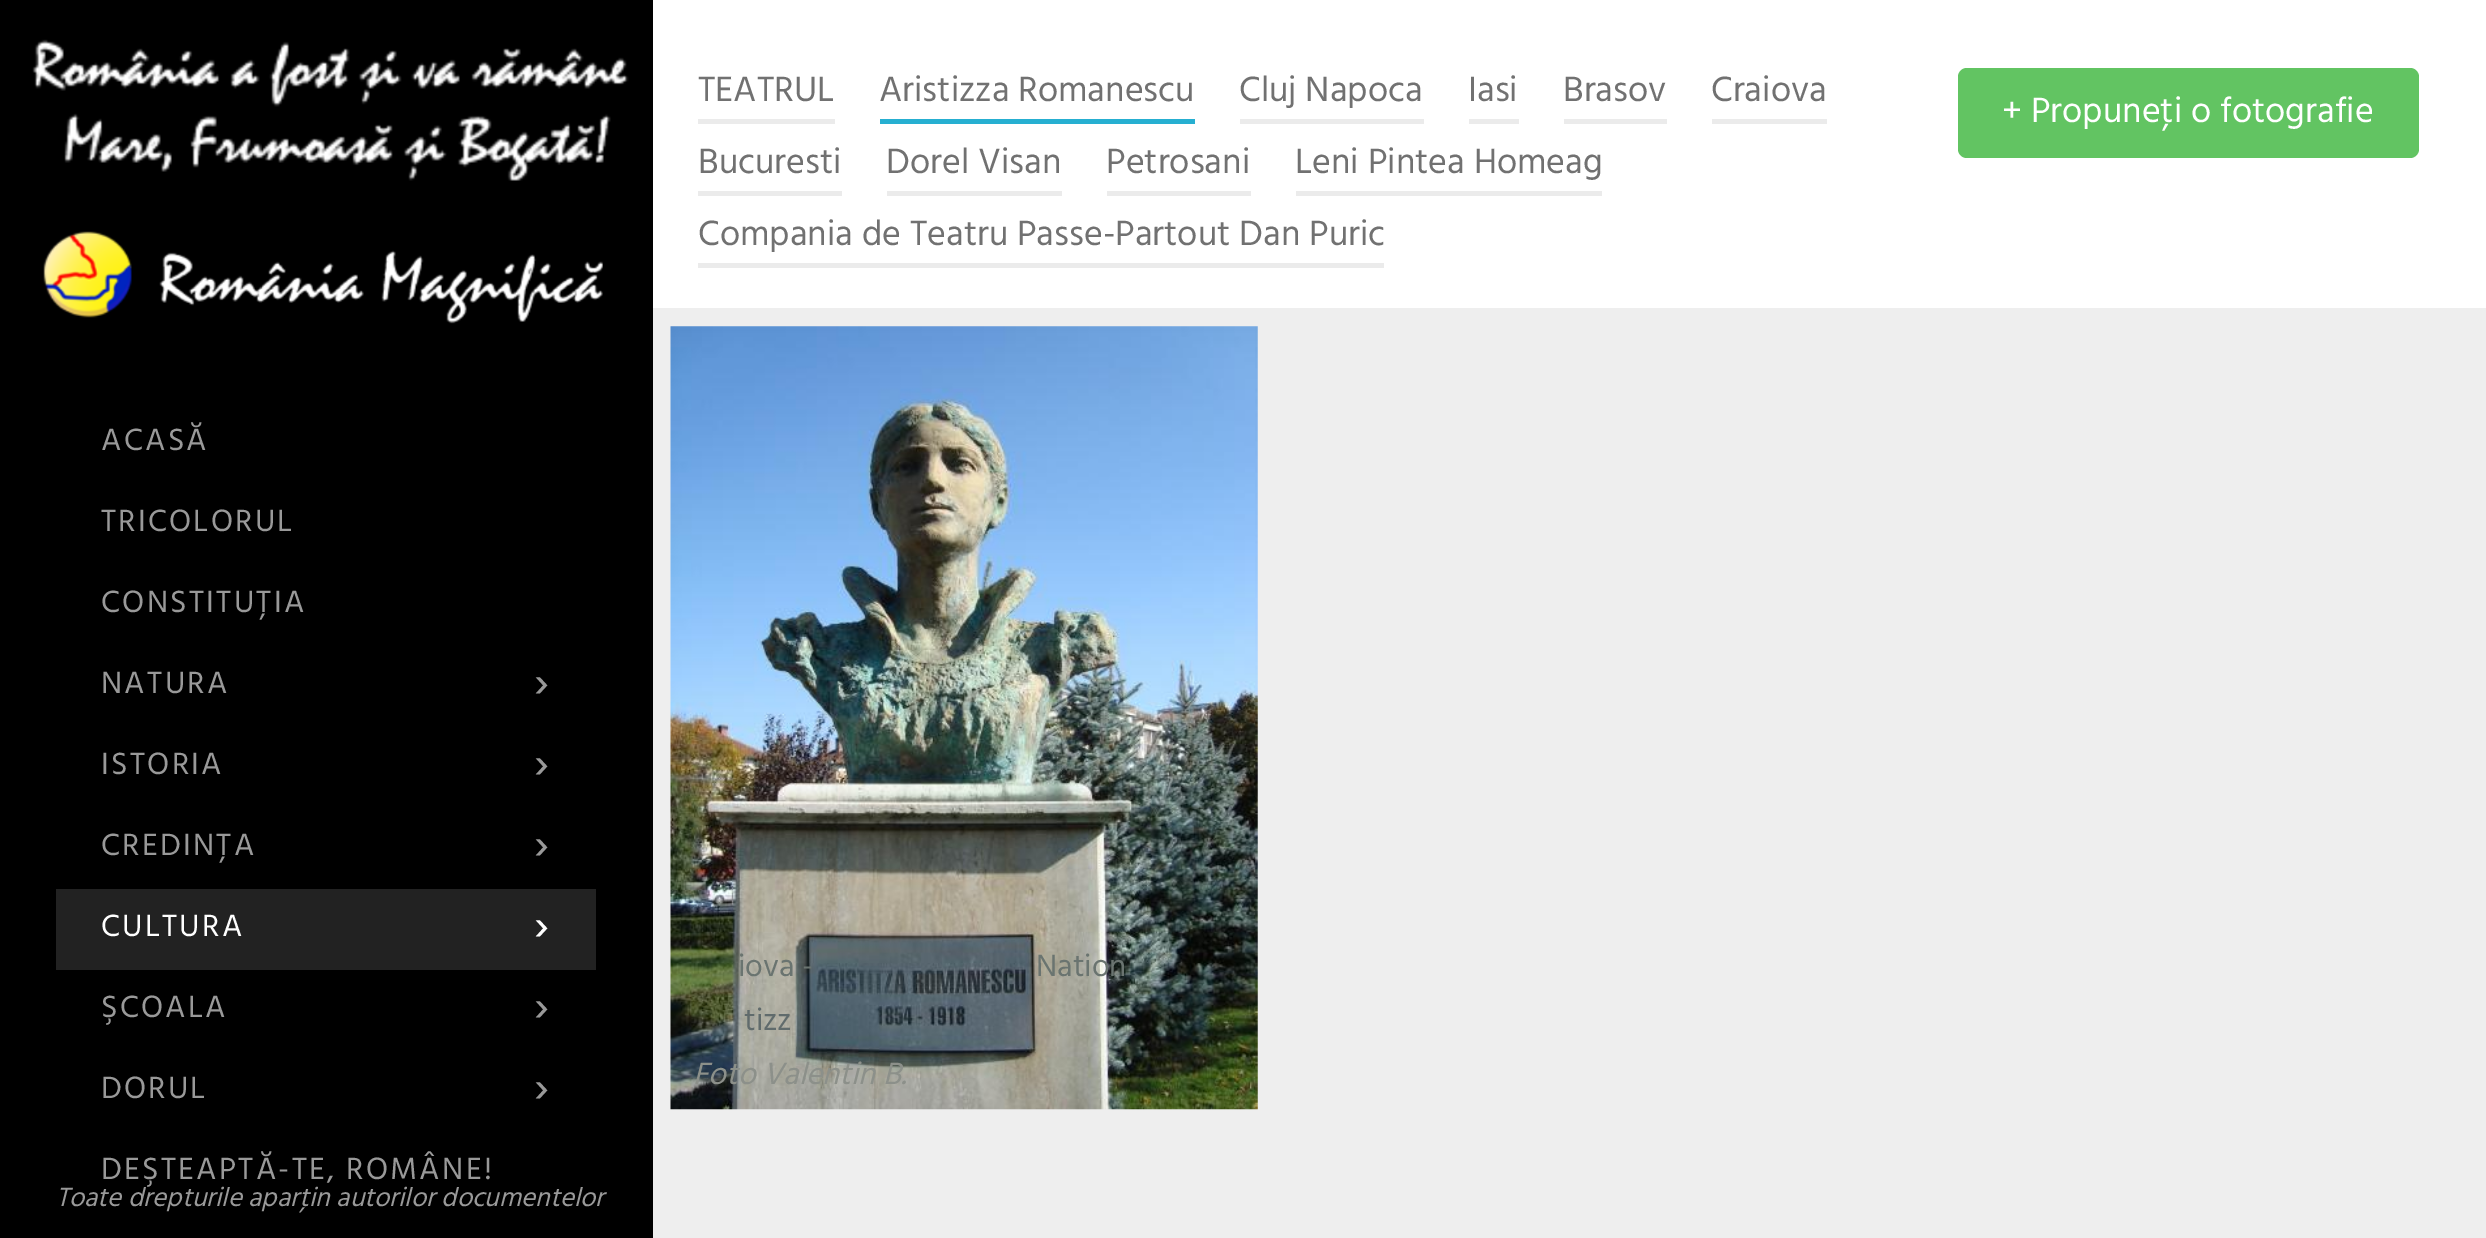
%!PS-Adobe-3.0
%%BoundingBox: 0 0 2486 1238
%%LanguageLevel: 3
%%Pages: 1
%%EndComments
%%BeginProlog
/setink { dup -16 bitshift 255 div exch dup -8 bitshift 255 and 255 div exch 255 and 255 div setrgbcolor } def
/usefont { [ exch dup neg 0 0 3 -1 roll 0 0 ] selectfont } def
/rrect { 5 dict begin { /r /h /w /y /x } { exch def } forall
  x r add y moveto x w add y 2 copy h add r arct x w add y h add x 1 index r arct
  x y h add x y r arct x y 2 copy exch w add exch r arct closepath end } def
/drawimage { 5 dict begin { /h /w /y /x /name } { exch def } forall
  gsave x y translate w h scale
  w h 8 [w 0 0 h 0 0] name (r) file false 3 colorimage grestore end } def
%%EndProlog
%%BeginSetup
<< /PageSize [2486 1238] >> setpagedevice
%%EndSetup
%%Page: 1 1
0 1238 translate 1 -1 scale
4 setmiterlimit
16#EEEEEE setink
0 0 2486 1238 rectfill
16#000000 setink
0 0 653 1238 rectfill
(img1.raw) 32 39 597 142 drawimage
(img2.raw) 43 231 560 93 drawimage
/Hind-Regular 31.5 usefont
16#999999 setink
101 450 moveto 2.25 0 (ACASĂ) ashow
101 531 moveto 2.25 0 (TRICOLORUL) ashow
101 612 moveto 2.25 0 (CONSTITUȚIA) ashow
101 693 moveto 2.25 0 (NATURA) ashow
/Hind-Regular 50 usefont
534 698 moveto 2.25 0 (›) ashow
/Hind-Regular 31.5 usefont
101 774 moveto 2.25 0 (ISTORIA) ashow
/Hind-Regular 50 usefont
534 779 moveto 2.25 0 (›) ashow
/Hind-Regular 31.5 usefont
101 855 moveto 2.25 0 (CREDINŢA) ashow
/Hind-Regular 50 usefont
534 860 moveto 2.25 0 (›) ashow
16#222222 setink
56 889 540 81 rectfill
/Hind-Regular 31.5 usefont
16#FFFFFF setink
101 936 moveto 2.25 0 (CULTURA) ashow
/Hind-Regular 50 usefont
534 941 moveto 2.25 0 (›) ashow
/Hind-Regular 31.5 usefont
16#999999 setink
101 1017 moveto 2.25 0 (ŞCOALA) ashow
/Hind-Regular 50 usefont
534 1022 moveto 2.25 0 (›) ashow
/Hind-Regular 31.5 usefont
101 1098 moveto 2.25 0 (DORUL) ashow
/Hind-Regular 50 usefont
534 1103 moveto 2.25 0 (›) ashow
/Hind-Regular 31.5 usefont
101 1179 moveto 2.25 0 (DEŞTEAPTĂ-TE, ROMÂNE!) ashow
/Hind-Italic 27 usefont
56 1206 moveto (Toate drepturile aparţin autorilor documentelor) show
16#FFFFFF setink
653 0 1833 308 rectfill
16#EBEBEB setink
698 119 137 5 rectfill
/Hind-Regular 36 usefont
16#717171 setink
698 101 moveto (TEATRUL) show
16#26AFD1 setink
880 119 315 5 rectfill
16#717171 setink
879 101 moveto (Aristizza Romanescu) show
16#EBEBEB setink
1240 119 184 5 rectfill
16#717171 setink
1239 101 moveto (Cluj Napoca) show
16#EBEBEB setink
1469 119 50 5 rectfill
16#717171 setink
1468 101 moveto (Iasi) show
16#EBEBEB setink
1564 119 103 5 rectfill
16#717171 setink
1563 101 moveto (Brasov) show
16#EBEBEB setink
1712 119 115 5 rectfill
16#717171 setink
1711 101 moveto (Craiova) show
16#EBEBEB setink
698 191 144 5 rectfill
16#717171 setink
698 173 moveto (Bucuresti) show
16#EBEBEB setink
887 191 175 5 rectfill
16#717171 setink
886 173 moveto (Dorel Visan) show
16#EBEBEB setink
1107 191 144 5 rectfill
16#717171 setink
1106 173 moveto (Petrosani) show
16#EBEBEB setink
1296 191 306 5 rectfill
16#717171 setink
1295 173 moveto (Leni Pintea Homeag) show
16#EBEBEB setink
698 263 686 5 rectfill
16#717171 setink
698 245 moveto (Compania de Teatru Passe-Partout Dan Puric) show
16#62C462 setink
1958 68 461 90 9 rrect fill
16#FFFFFF setink
2002 122 moveto (+ Propuneţi o fotografie) show
(img3.raw) 670 326 588 784 drawimage
/Hind-Regular 31.5 usefont
16#6A7470 setink
738 976 moveto (iova -) show
1036 976 moveto (Nation) show
16#606B6C setink
744 1030 moveto (tizz) show
/Hind-Italic 31.5 usefont
16#8C908A setink
693 1084 moveto (Foto Valentin B.) show
showpage
%%EOF
